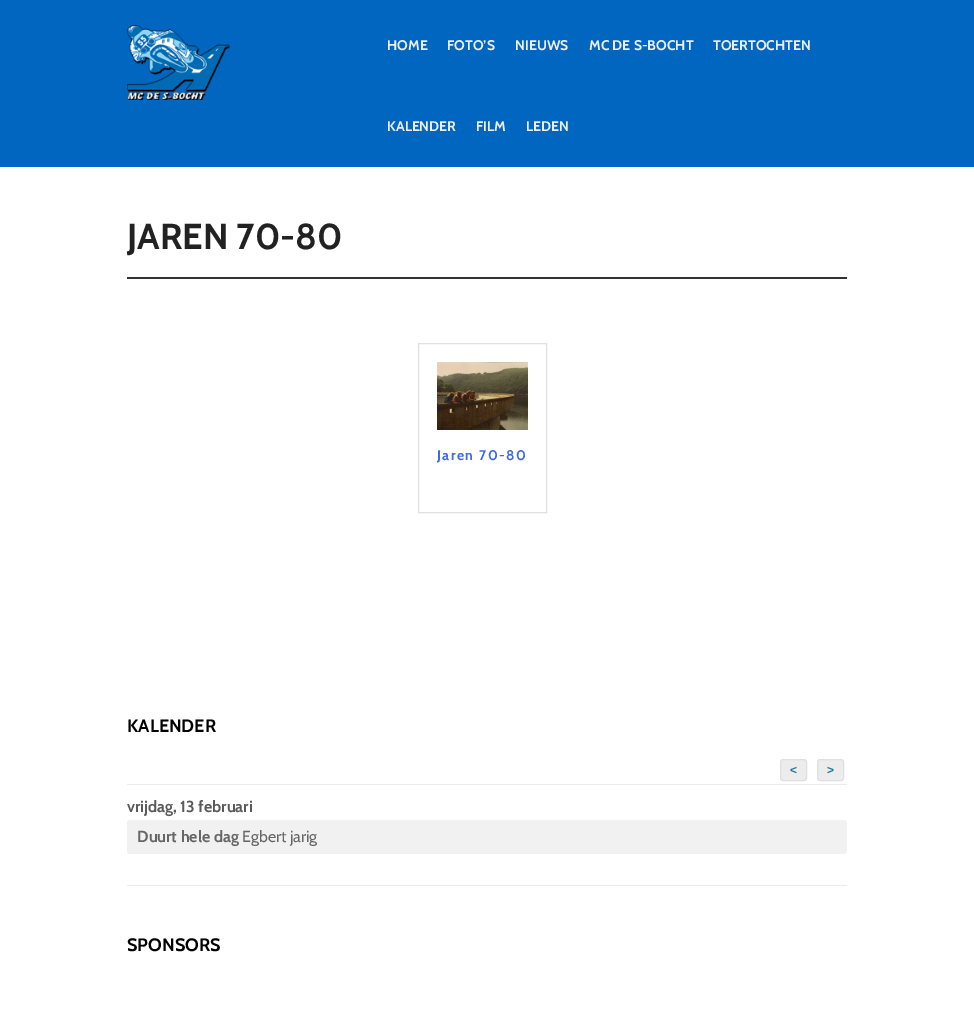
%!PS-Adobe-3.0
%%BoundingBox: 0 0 974 1021
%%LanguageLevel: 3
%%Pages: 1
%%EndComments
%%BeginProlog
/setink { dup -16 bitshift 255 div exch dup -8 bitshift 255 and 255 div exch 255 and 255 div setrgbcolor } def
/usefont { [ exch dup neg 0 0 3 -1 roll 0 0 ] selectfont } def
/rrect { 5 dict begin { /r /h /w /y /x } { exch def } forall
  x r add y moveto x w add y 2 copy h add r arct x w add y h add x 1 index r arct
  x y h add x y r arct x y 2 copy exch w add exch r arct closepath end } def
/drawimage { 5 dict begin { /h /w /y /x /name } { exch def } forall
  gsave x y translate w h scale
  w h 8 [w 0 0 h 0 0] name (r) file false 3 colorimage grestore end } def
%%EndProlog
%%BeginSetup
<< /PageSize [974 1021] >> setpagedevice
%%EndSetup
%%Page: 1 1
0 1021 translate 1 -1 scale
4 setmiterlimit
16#FFFFFF setink
0 0 974 1021 rectfill
16#0066BF setink
0 0 974 167 rectfill
(img1.raw) 127 25 103 75 drawimage
/Cabin-Bold 14 usefont
16#EEEEEE setink
[
    [(HOME) 387 50]
    [(FOTO’S) 447 50]
    [(NIEUWS) 515 50]
    [(MC DE S-BOCHT) 589 50]
    [(TOERTOCHTEN) 713 50]
    [(KALENDER) 387 131]
    [(FILM) 476 131]
    [(LEDEN) 526 131]
] { aload pop moveto show } forall
16#333333 setink
127 277 720 2 rectfill
/Cabin-Bold 36 usefont
16#222222 setink
127 249 moveto (JAREN 70-80) show
16#E0E0E0 setink
418.5 343.5 128 169 rectstroke
(img2.raw) 437 362 91 68 drawimage
/Cabin-Bold 14 usefont
16#4169E1 setink
437 460 moveto 1.4 0 (Jaren 70-80) ashow
/Cabin-Bold 18 usefont
16#000000 setink
127 732 moveto (KALENDER) show
16#ECECEC setink
780.5 759.5 26 21 2.5 rrect gsave fill grestore
16#DFDFDF setink
stroke
/LiberationSans-Bold 12 usefont
16#21759B setink
790 774 moveto (<) show
16#ECECEC setink
817.5 759.5 26 21 2.5 rrect gsave fill grestore
16#DFDFDF setink
stroke
16#21759B setink
827 774 moveto (>) show
16#ECECEC setink
127 885 720 1 rectfill
127 784 720 1 rectfill
/Cabin-Bold 16 usefont
16#5A5A5A setink
127 812 moveto (vrijdag, 13 februari) show
16#F1F1F1 setink
127 820 720 34 3 rrect fill
16#666666 setink
137 842 moveto (Duurt hele dag) show
/Cabin-Regular 16 usefont
242 842 moveto (Egbert jarig) show
/Cabin-Bold 18 usefont
16#000000 setink
127 951 moveto (SPONSORS) show
showpage
%%EOF
